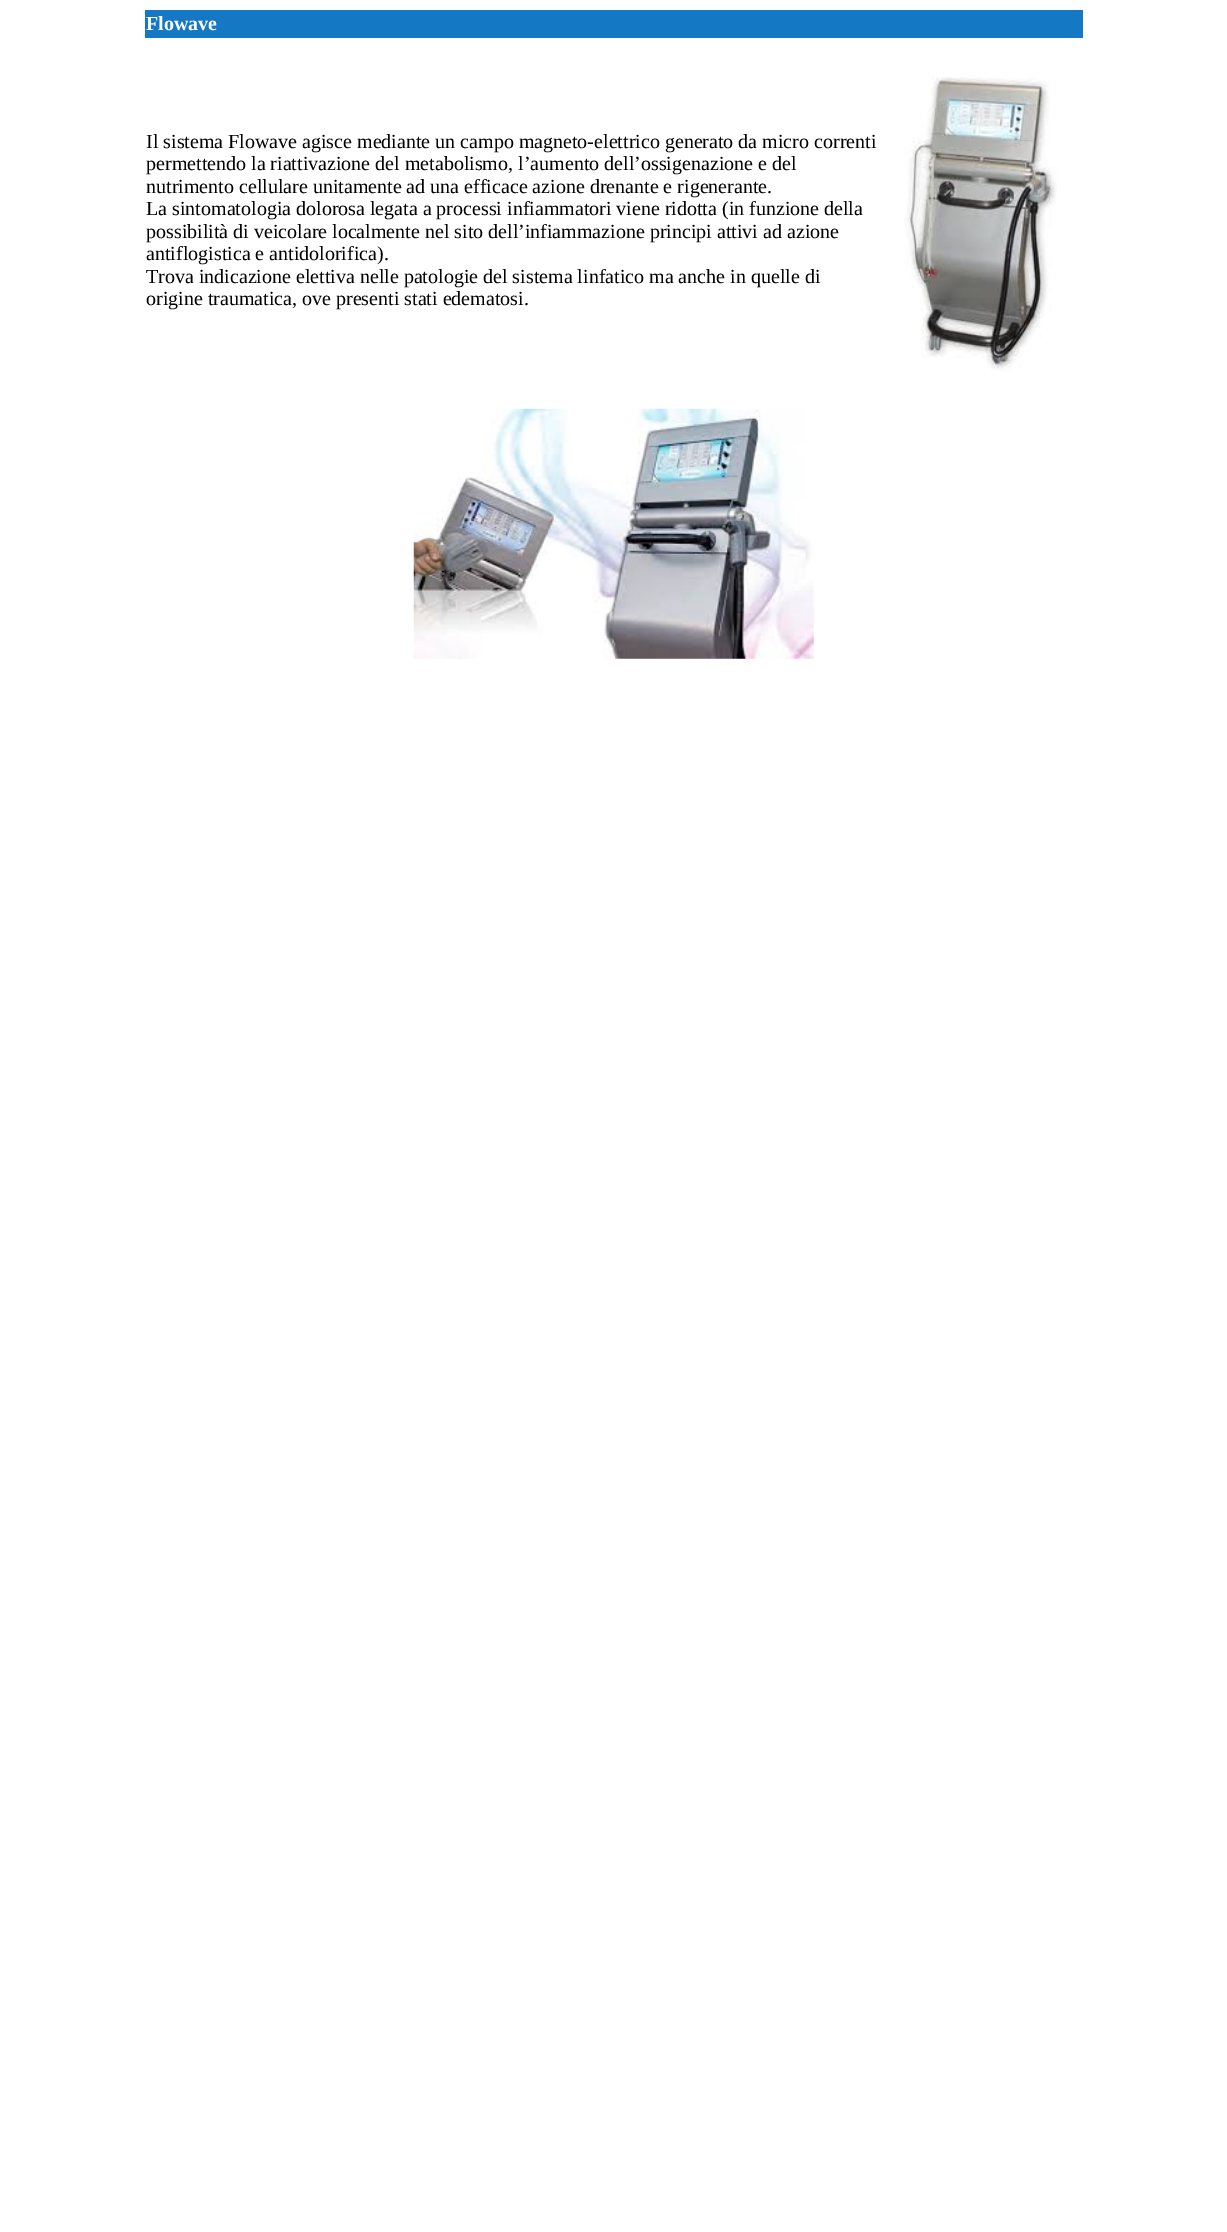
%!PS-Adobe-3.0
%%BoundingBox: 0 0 1227 2232
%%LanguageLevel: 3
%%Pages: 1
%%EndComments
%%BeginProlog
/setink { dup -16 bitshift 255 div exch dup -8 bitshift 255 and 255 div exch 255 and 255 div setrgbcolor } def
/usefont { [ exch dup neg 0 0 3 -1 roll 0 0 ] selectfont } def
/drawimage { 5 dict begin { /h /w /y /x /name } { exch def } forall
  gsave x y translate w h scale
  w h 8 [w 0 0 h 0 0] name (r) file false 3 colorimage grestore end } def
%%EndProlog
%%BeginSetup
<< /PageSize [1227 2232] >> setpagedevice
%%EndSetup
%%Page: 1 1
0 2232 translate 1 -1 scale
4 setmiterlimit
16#FFFFFF setink
0 0 1227 2232 rectfill
16#1478C4 setink
145 10 938 28 rectfill
/LiberationSerif-Bold 20 usefont
16#FFFFFF setink
146 30 moveto (Flowave) show
/LiberationSerif-Regular 20 usefont
16#000000 setink
[
    [(Il sistema Flowave agisce mediante un campo magneto-elettrico generato da micro correnti) 146 148]
    [(permettendo la riattivazione del metabolismo, l’aumento dell’ossigenazione e del) 146 170]
    [(nutrimento cellulare unitamente ad una efficace azione drenante e rigenerante.) 146 193]
    [(La sintomatologia dolorosa legata a processi infiammatori viene ridotta \(in funzione della) 146 215]
    [(possibilità di veicolare localmente nel sito dell’infiammazione principi attivi ad azione) 146 238]
    [(antiflogistica e antidolorifica\).) 146 260]
    [(Trova indicazione elettiva nelle patologie del sistema linfatico ma anche in quelle di) 146 283]
    [(origine traumatica, ove presenti stati edematosi.) 146 305]
] { aload pop moveto show } forall
(img1.raw) 904 77 153 294 drawimage
(img2.raw) 413 408 401 251 drawimage
showpage
%%EOF
